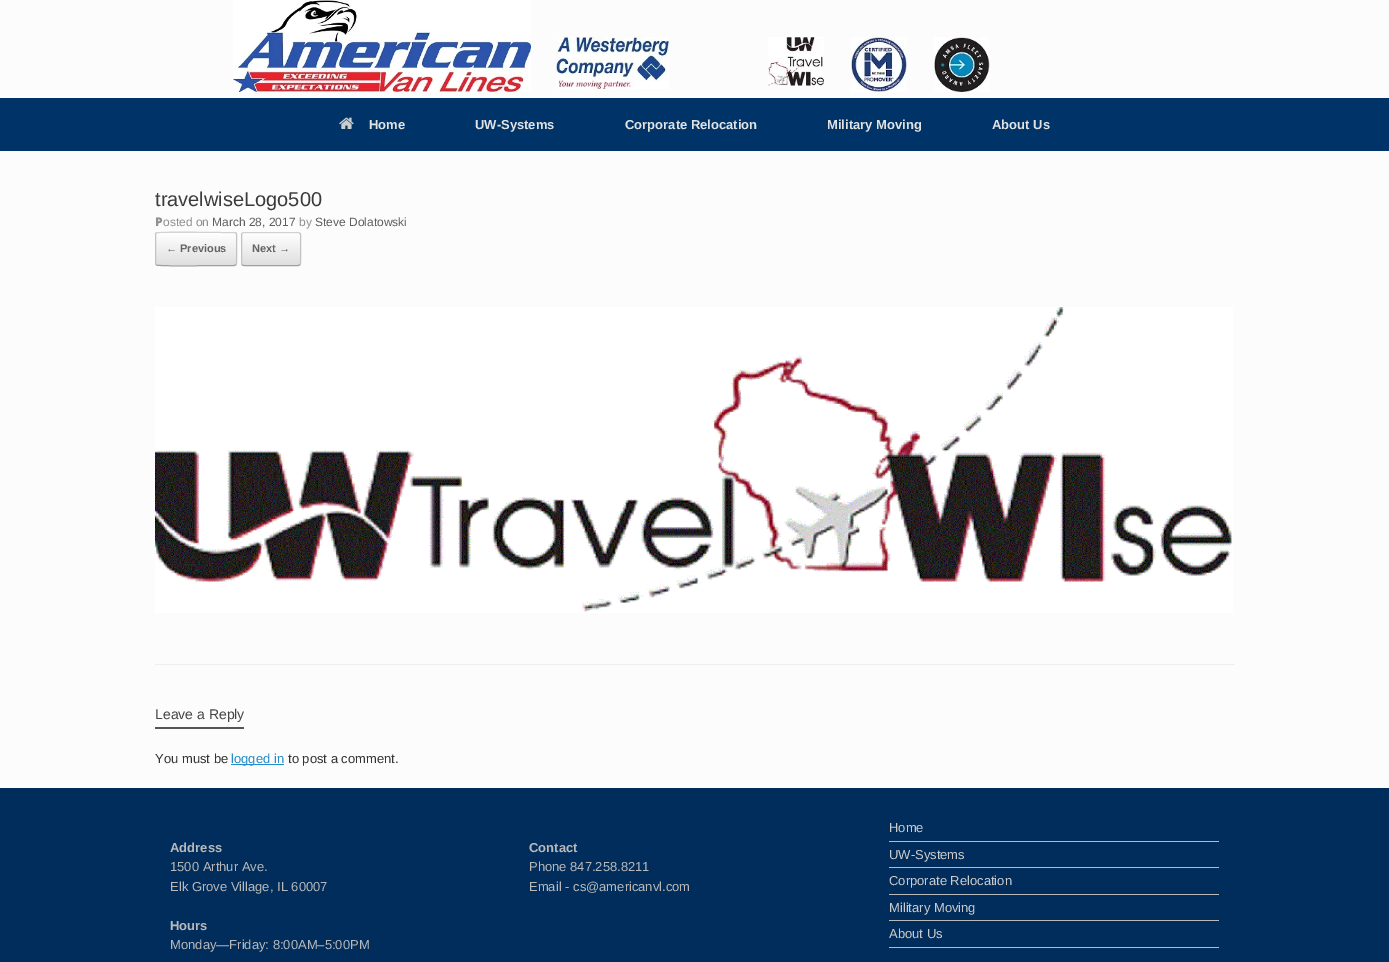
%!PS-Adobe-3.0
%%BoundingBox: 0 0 1389 962
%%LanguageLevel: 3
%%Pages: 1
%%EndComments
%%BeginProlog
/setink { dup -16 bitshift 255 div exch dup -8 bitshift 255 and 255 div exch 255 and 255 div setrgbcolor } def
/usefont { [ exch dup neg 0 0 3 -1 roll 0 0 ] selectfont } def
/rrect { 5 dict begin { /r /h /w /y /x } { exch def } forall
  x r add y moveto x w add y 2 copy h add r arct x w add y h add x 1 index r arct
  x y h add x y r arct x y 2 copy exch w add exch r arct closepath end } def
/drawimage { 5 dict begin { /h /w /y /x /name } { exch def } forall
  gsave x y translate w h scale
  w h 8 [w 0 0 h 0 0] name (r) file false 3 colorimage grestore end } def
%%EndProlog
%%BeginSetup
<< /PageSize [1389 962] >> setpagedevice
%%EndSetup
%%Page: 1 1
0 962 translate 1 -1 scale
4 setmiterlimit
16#002D5B setink
0 0 1389 962 rectfill
16#FCFCFC setink
0 0 1389 98 rectfill
(img1.raw) 233 0 298 92 drawimage
(img2.raw) 556 37 113 52 drawimage
(img3.raw) 768 37 56 49 drawimage
(img4.raw) 851 37 56 55 drawimage
(img5.raw) 934 37 56 55 drawimage
16#003468 setink
0 98 1389 53 rectfill
(img6.raw) 339 117 15 12 drawimage
/LiberationSans-Bold 13 usefont
16#E2E2E2 setink
[
    [(Home) 369 129]
    [(UW-Systems) 475 129]
    [(Corporate Relocation) 625 129]
    [(Military Moving) 827 129]
    [(About Us) 992 129]
] { aload pop moveto show } forall
16#FCFCFC setink
0 151 1389 637 rectfill
16#EEEEEE setink
155 664 1080 1 rectfill
/LiberationSans-Regular 20 usefont
16#3B3B3B setink
155 206 moveto (travelwiseLogo500) show
/NotoSans-Black 12 usefont
16#8F8F8F setink
155 226 moveto (P) show
/LiberationSans-Regular 12 usefont
163 226 moveto (osted on) show
16#5E5E5E setink
212 226 moveto (March 28, 2017) show
16#8F8F8F setink
299 226 moveto (by) show
16#5E5E5E setink
315 226 moveto (Steve Dolatowski) show
gsave
155 232 82 34 3 rrect clip newpath
gsave 155 232 moveto 237 232 lineto 237 233 lineto 155 233 lineto closepath clip newpath
<< /ShadingType 2 /ColorSpace /DeviceRGB /Coords [156 233 156 201] /Extend [true true] /Function << /FunctionType 2 /Domain [0 1] /C0 [0.875 0.875 0.875] /C1 [1 1 1] /N 1 >> >> shfill grestore
gsave 155 233 moveto 237 233 lineto 237 265 lineto 155 265 lineto closepath clip newpath
<< /ShadingType 2 /ColorSpace /DeviceRGB /Coords [156 265 156 233] /Extend [true true] /Function << /FunctionType 2 /Domain [0 1] /C0 [0.875 0.875 0.875] /C1 [1 1 1] /N 1 >> >> shfill grestore
gsave 155 265 moveto 237 265 lineto 237 266 lineto 155 266 lineto closepath clip newpath
<< /ShadingType 2 /ColorSpace /DeviceRGB /Coords [156 297 156 265] /Extend [true true] /Function << /FunctionType 2 /Domain [0 1] /C0 [0.875 0.875 0.875] /C1 [1 1 1] /N 1 >> >> shfill grestore
grestore
16#D2D2D2 setink
156 233 moveto 156.5 233 lineto 158.5 231.5 214.5 232.5 221.5 232.5 curveto 234 232.5 lineto 236 233 lineto stroke
16#C3C3C3 setink
236 233 moveto 236 233.5 236.5 234.5 236.5 235 curveto 236.5 263 lineto 236.5 263.5 236 264.5 236 265 curveto stroke
16#9F9F9F setink
236 265 moveto 234 265.5 lineto 221.5 265.5 lineto 214.5 265.5 158.5 266.5 156.5 265 curveto 156 265 lineto stroke
16#C3C3C3 setink
156 265 moveto 156 264.5 155.5 263.5 155.5 263 curveto 155.5 235 lineto 155.5 234.5 156 233.5 156 233 curveto stroke
/LiberationSans-Bold 11 usefont
16#646464 setink
166 252 moveto (← Previous) show
gsave
241 232 60 34 3 rrect clip newpath
gsave 241 233 moveto 301 233 lineto 301 265 lineto 241 265 lineto closepath clip newpath
<< /ShadingType 2 /ColorSpace /DeviceRGB /Coords [242 265 242 233] /Extend [true true] /Function << /FunctionType 2 /Domain [0 1] /C0 [0.875 0.875 0.875] /C1 [1 1 1] /N 1 >> >> shfill grestore
grestore
16#D2D2D2 setink
242 233 moveto 244 232.5 lineto 298 232.5 lineto 300 233 lineto stroke
16#C3C3C3 setink
300 233 moveto 300 233.5 300.5 234.5 300.5 235 curveto 300.5 263 lineto 300.5 263.5 300 264.5 300 265 curveto stroke
16#9F9F9F setink
300 265 moveto 298 265.5 lineto 244 265.5 lineto 242 265 lineto stroke
16#C3C3C3 setink
242 265 moveto 242 264.5 241.5 263.5 241.5 263 curveto 241.5 235 lineto 241.5 234.5 242 233.5 242 233 curveto stroke
16#646464 setink
252 252 moveto (Next →) show
(img7.raw) 155 307 1078 306 drawimage
16#555555 setink
155 727 89 2 rectfill
/LiberationSans-Regular 14 usefont
16#444444 setink
155 719 moveto (Leave a Reply) show
/LiberationSans-Regular 13 usefont
16#333333 setink
155 763 moveto (You must be) show
16#248CC8 setink
231 764 53 1 rectfill
231 763 moveto (logged in) show
16#333333 setink
288 763 moveto (to post a comment.) show
/LiberationSans-Bold 13 usefont
16#B9B9B9 setink
170 852 moveto (Address) show
/LiberationSans-Regular 13 usefont
170 871 moveto (1500 Arthur Ave.) show
170 891 moveto (Elk Grove Village, IL 60007) show
/LiberationSans-Bold 13 usefont
170 930 moveto (Hours) show
/LiberationSans-Regular 13 usefont
170 949 moveto (Monday—Friday: 8:00AM–5:00PM) show
/LiberationSans-Bold 13 usefont
529 852 moveto (Contact) show
/LiberationSans-Regular 13 usefont
529 871 moveto (Phone 847.258.8211) show
529 891 moveto (Email - cs@americanvl.com) show
889 841 330 1 rectfill
16#CCCCCC setink
889 832 moveto (Home) show
16#B9B9B9 setink
889 867 330 1 rectfill
16#CCCCCC setink
889 859 moveto (UW-Systems) show
16#B9B9B9 setink
889 894 330 1 rectfill
16#CCCCCC setink
889 885 moveto (Corporate Relocation) show
16#B9B9B9 setink
889 920 330 1 rectfill
16#CCCCCC setink
889 912 moveto (Military Moving) show
16#B9B9B9 setink
889 947 330 1 rectfill
16#CCCCCC setink
889 938 moveto (About Us) show
showpage
%%EOF
